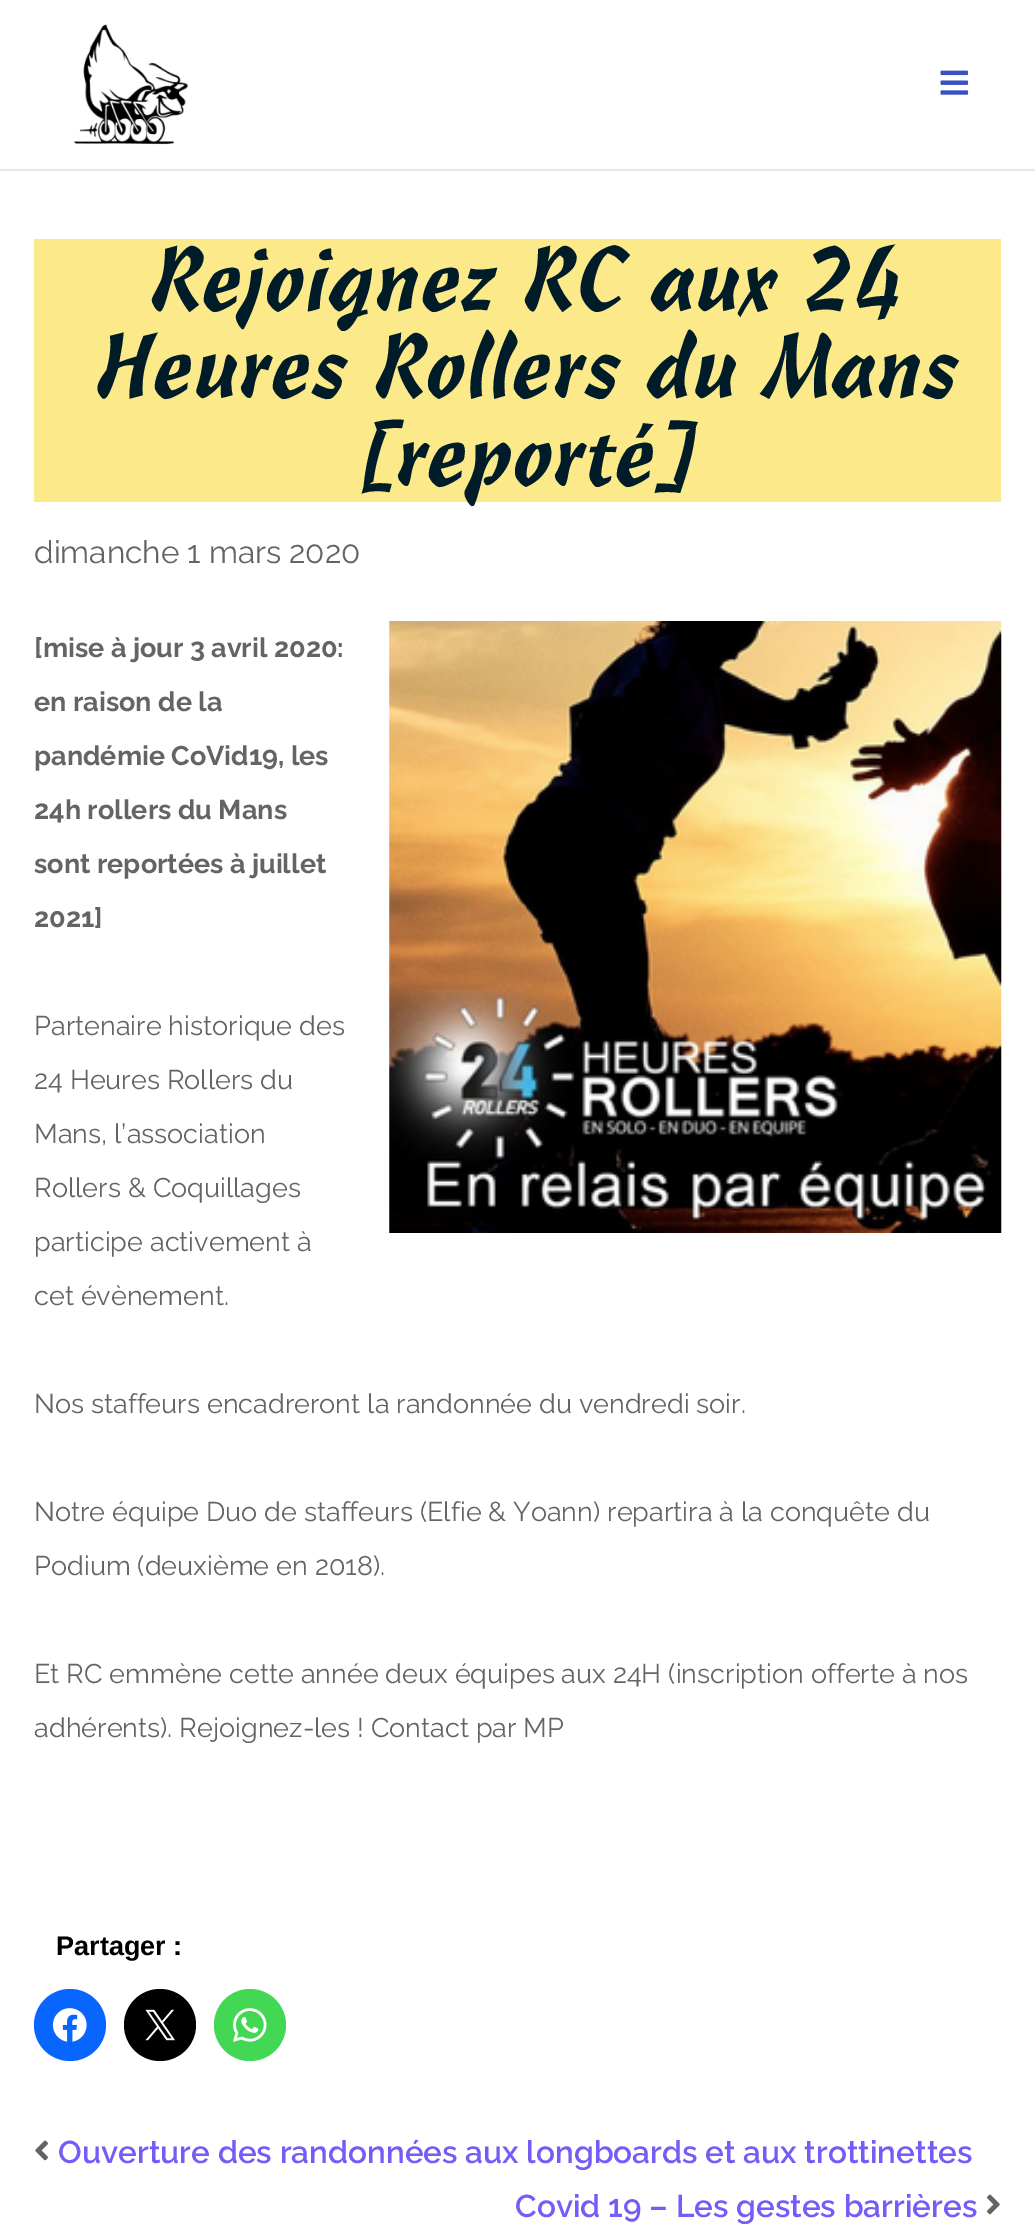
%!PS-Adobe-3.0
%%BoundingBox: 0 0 1035 2226
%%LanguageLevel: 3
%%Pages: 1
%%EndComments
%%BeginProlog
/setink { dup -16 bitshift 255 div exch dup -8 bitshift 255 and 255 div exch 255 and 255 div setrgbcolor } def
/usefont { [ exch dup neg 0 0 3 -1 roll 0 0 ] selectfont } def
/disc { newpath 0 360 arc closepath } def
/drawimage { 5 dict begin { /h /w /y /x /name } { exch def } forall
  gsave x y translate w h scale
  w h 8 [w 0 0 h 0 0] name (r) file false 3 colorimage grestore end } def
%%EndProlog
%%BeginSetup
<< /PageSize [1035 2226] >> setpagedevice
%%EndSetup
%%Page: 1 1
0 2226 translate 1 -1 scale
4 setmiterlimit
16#FFFFFF setink
0 0 1035 2226 rectfill
16#E6E6E6 setink
0 169 1035 2 rectfill
(img1.raw) 73 24 116 121 drawimage
(img2.raw) 940 70 29 25 drawimage
16#FCEA8A setink
34 239 967 263 rectfill
/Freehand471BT-Regular 90 usefont
16#001C28 setink
[
    [(Rejoignez RC aux 24) 151 311]
    [(Heures Rollers du Mans) 96 398]
    [([reporté]) 358 486]
] { aload pop moveto show } forall
/Raleway-Regular 31.5 usefont
16#646464 setink
34 563 moveto (dimanche 1 mars 2020) show
/Raleway-Bold 27 usefont
34 657 moveto ([mise à jour 3 avril 2020:) show
(img3.raw) 389 621 613 612 drawimage
[
    [(en raison de la) 34 711]
    [(pandémie CoVid19, les) 34 765]
    [(24h rollers du Mans) 34 819]
    [(sont reportées à juillet) 34 873]
    [(2021]) 34 927]
] { aload pop moveto show } forall
/Raleway-Regular 27 usefont
[
    [(Partenaire historique des) 34 1035]
    [(24 Heures Rollers du) 34 1089]
    [(Mans, l’association) 34 1143]
    [(Rollers & Coquillages) 34 1197]
    [(participe activement à) 34 1251]
    [(cet évènement.) 34 1305]
    [(Nos staffeurs encadreront la randonnée du vendredi soir.) 34 1413]
    [(Notre équipe Duo de staffeurs \(Elfie & Yoann\) repartira à la conquête du) 34 1521]
    [(Podium \(deuxième en 2018\).) 34 1575]
    [(Et RC emmène cette année deux équipes aux 24H \(inscription offerte à nos) 34 1683]
    [(adhérents\). Rejoignez-les ! Contact par MP) 34 1737]
] { aload pop moveto show } forall
/LiberationSans-Bold 27 usefont
16#000000 setink
56 1955 moveto (Partager :) show
16#0866FF setink
70 2025 36 disc fill
(img4.raw) 52 2008 35 34 drawimage
16#000000 setink
160 2025 36 disc fill
(img5.raw) 145 2009 30 32 drawimage
16#43D854 setink
250 2025 36 disc fill
(img6.raw) 233 2008 34 34 drawimage
(img7.raw) 35 2140 13 21 drawimage
/Raleway-SemiBold 31.5 usefont
16#745CF9 setink
58 2163 moveto (Ouverture des randonnées aux longboards et aux trottinettes) show
515 2217 moveto (Covid 19 – Les gestes barrières) show
(img8.raw) 987 2194 13 21 drawimage
showpage
%%EOF
